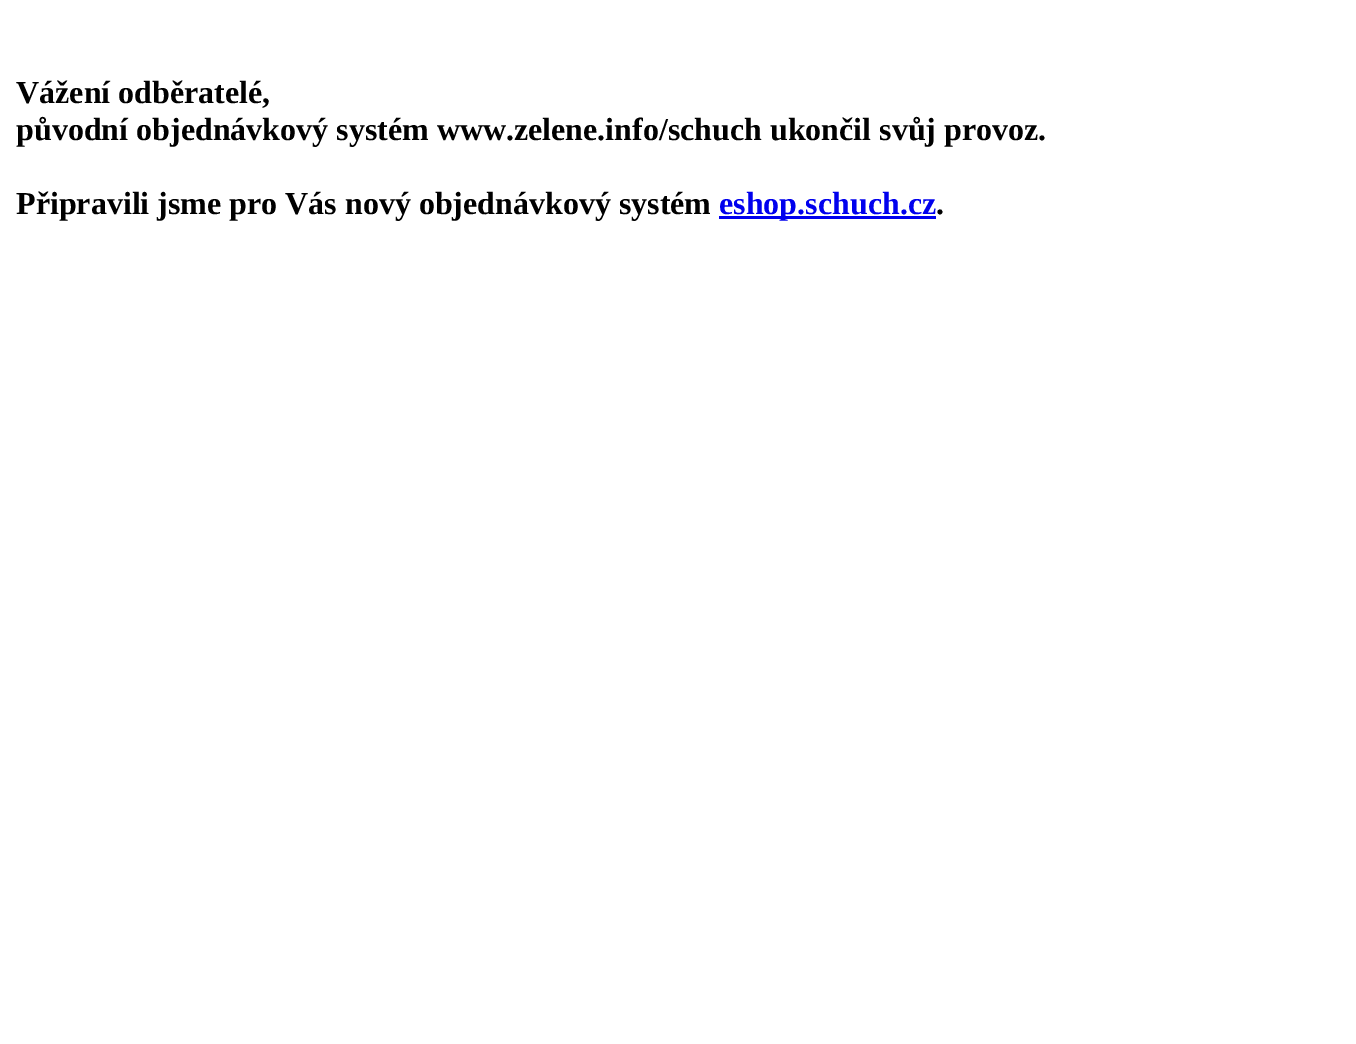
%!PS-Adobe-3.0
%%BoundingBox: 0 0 1356 1044
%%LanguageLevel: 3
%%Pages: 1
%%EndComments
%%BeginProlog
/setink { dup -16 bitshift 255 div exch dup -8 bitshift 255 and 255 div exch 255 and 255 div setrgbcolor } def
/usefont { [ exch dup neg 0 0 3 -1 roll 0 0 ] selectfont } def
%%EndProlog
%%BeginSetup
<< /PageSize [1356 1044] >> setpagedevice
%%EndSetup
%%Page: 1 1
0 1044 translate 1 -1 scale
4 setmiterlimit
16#FFFFFF setink
0 0 1356 1044 rectfill
/LiberationSerif-Bold 32 usefont
16#000000 setink
[
    [(Vážení odběratelé,) 16 103]
    [(původní objednávkový systém www.zelene.info/schuch ukončil svůj provoz.) 16 140]
    [(Připravili jsme pro Vás nový objednávkový systém) 16 214]
] { aload pop moveto show } forall
16#0000EE setink
719 216 217 3 rectfill
719 214 moveto (eshop.schuch.cz) show
16#000000 setink
936 214 moveto (.) show
showpage
%%EOF
